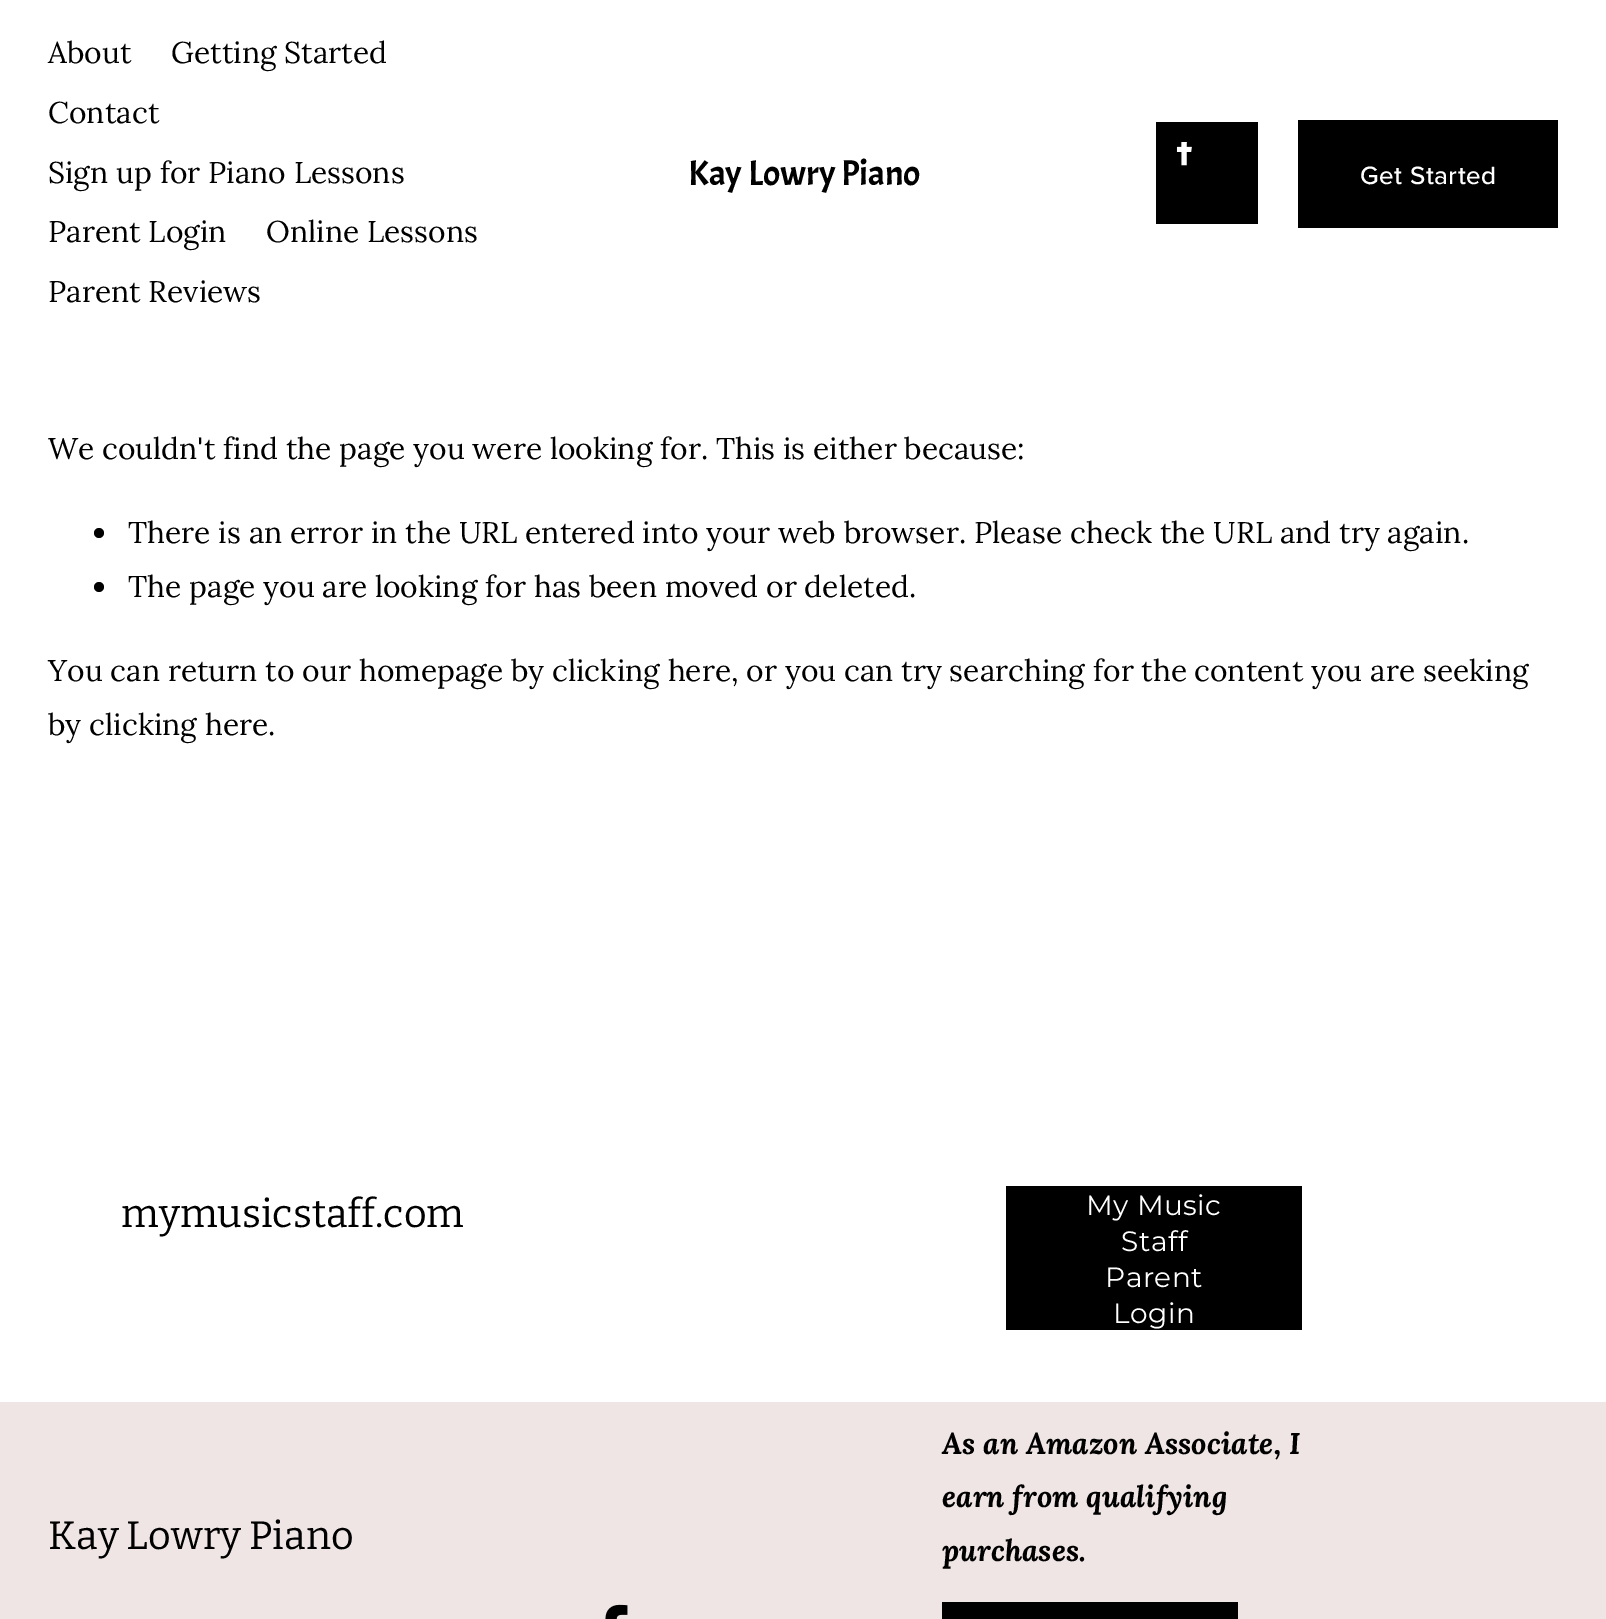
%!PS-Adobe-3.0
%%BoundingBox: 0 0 1606 1619
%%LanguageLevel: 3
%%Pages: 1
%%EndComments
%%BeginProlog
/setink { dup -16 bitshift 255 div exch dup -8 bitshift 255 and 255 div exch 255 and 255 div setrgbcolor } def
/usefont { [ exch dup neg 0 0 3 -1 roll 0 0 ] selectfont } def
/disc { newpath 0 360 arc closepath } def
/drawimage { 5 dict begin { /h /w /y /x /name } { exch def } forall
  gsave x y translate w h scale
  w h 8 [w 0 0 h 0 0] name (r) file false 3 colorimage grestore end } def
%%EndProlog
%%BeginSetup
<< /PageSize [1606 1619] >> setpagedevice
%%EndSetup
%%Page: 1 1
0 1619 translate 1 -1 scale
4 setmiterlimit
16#FFFFFF setink
0 0 1606 1619 rectfill
/Lora-Regular 29.95 usefont
16#000000 setink
[
    [(About) 48 63]
    [(Getting Started) 171 63]
    [(Contact) 48 123]
    [(Sign up for Piano Lessons) 48 183]
    [(Parent Login) 48 242]
    [(Online Lessons) 266 242]
    [(Parent Reviews) 48 302]
] { aload pop moveto show } forall
/Acme-Regular 35.75 usefont
688 185 moveto (Kay Lowry Piano) show
1156 122 102 102 rectfill
(img1.raw) 1176 142 16 24 drawimage
1298 120 260 108 rectfill
/ProximaNova-Medium 26 usefont
16#FFFFFF setink
1360 184 moveto 0.5 0 (Get Started) ashow
/Lora-Regular 29.95 usefont
16#000000 setink
48 459 moveto (We couldn't find the page you were looking for. This is either because:) show
99 533 5 disc fill
128 543 moveto (There is an error in the URL entered into your web browser. Please check the URL and try again.) show
99 587 5 disc fill
[
    [(The page you are looking for has been moved or deleted.) 128 597]
    [(You can return to our homepage by) 48 681]
    [(clicking here, or you can try searching for the) 552 681]
    [(content you are seeking) 1194 681]
    [(by clicking here.) 48 735]
] { aload pop moveto show } forall
/Bitter-Regular 39.5 usefont
121 1227 moveto (mymusicstaff.com) show
1006 1186 296 144 rectfill
/Montserrat-Thin 28 usefont
16#FFFFFF setink
1086 1215 moveto 0.5 0 (My Music) ashow
1121 1251 moveto 0.5 0 (Staff) ashow
1105 1287 moveto 0.5 0 (Parent) ashow
1113 1323 moveto 0.5 0 (Login) ashow
16#EEE5E4 setink
0 1402 1606 217 rectfill
/Bitter-Regular 39.5 usefont
16#000000 setink
48 1549 moveto (Kay Lowry Piano) show
/Lora-BoldItalic 29.95 usefont
[
    [(As an Amazon Associate, I) 942 1454]
    [(earn from qualifying) 942 1507]
    [(purchases.) 942 1561]
] { aload pop moveto show } forall
(img2.raw) 605 1604 23 15 drawimage
942 1602 296 17 rectfill
showpage
%%EOF
